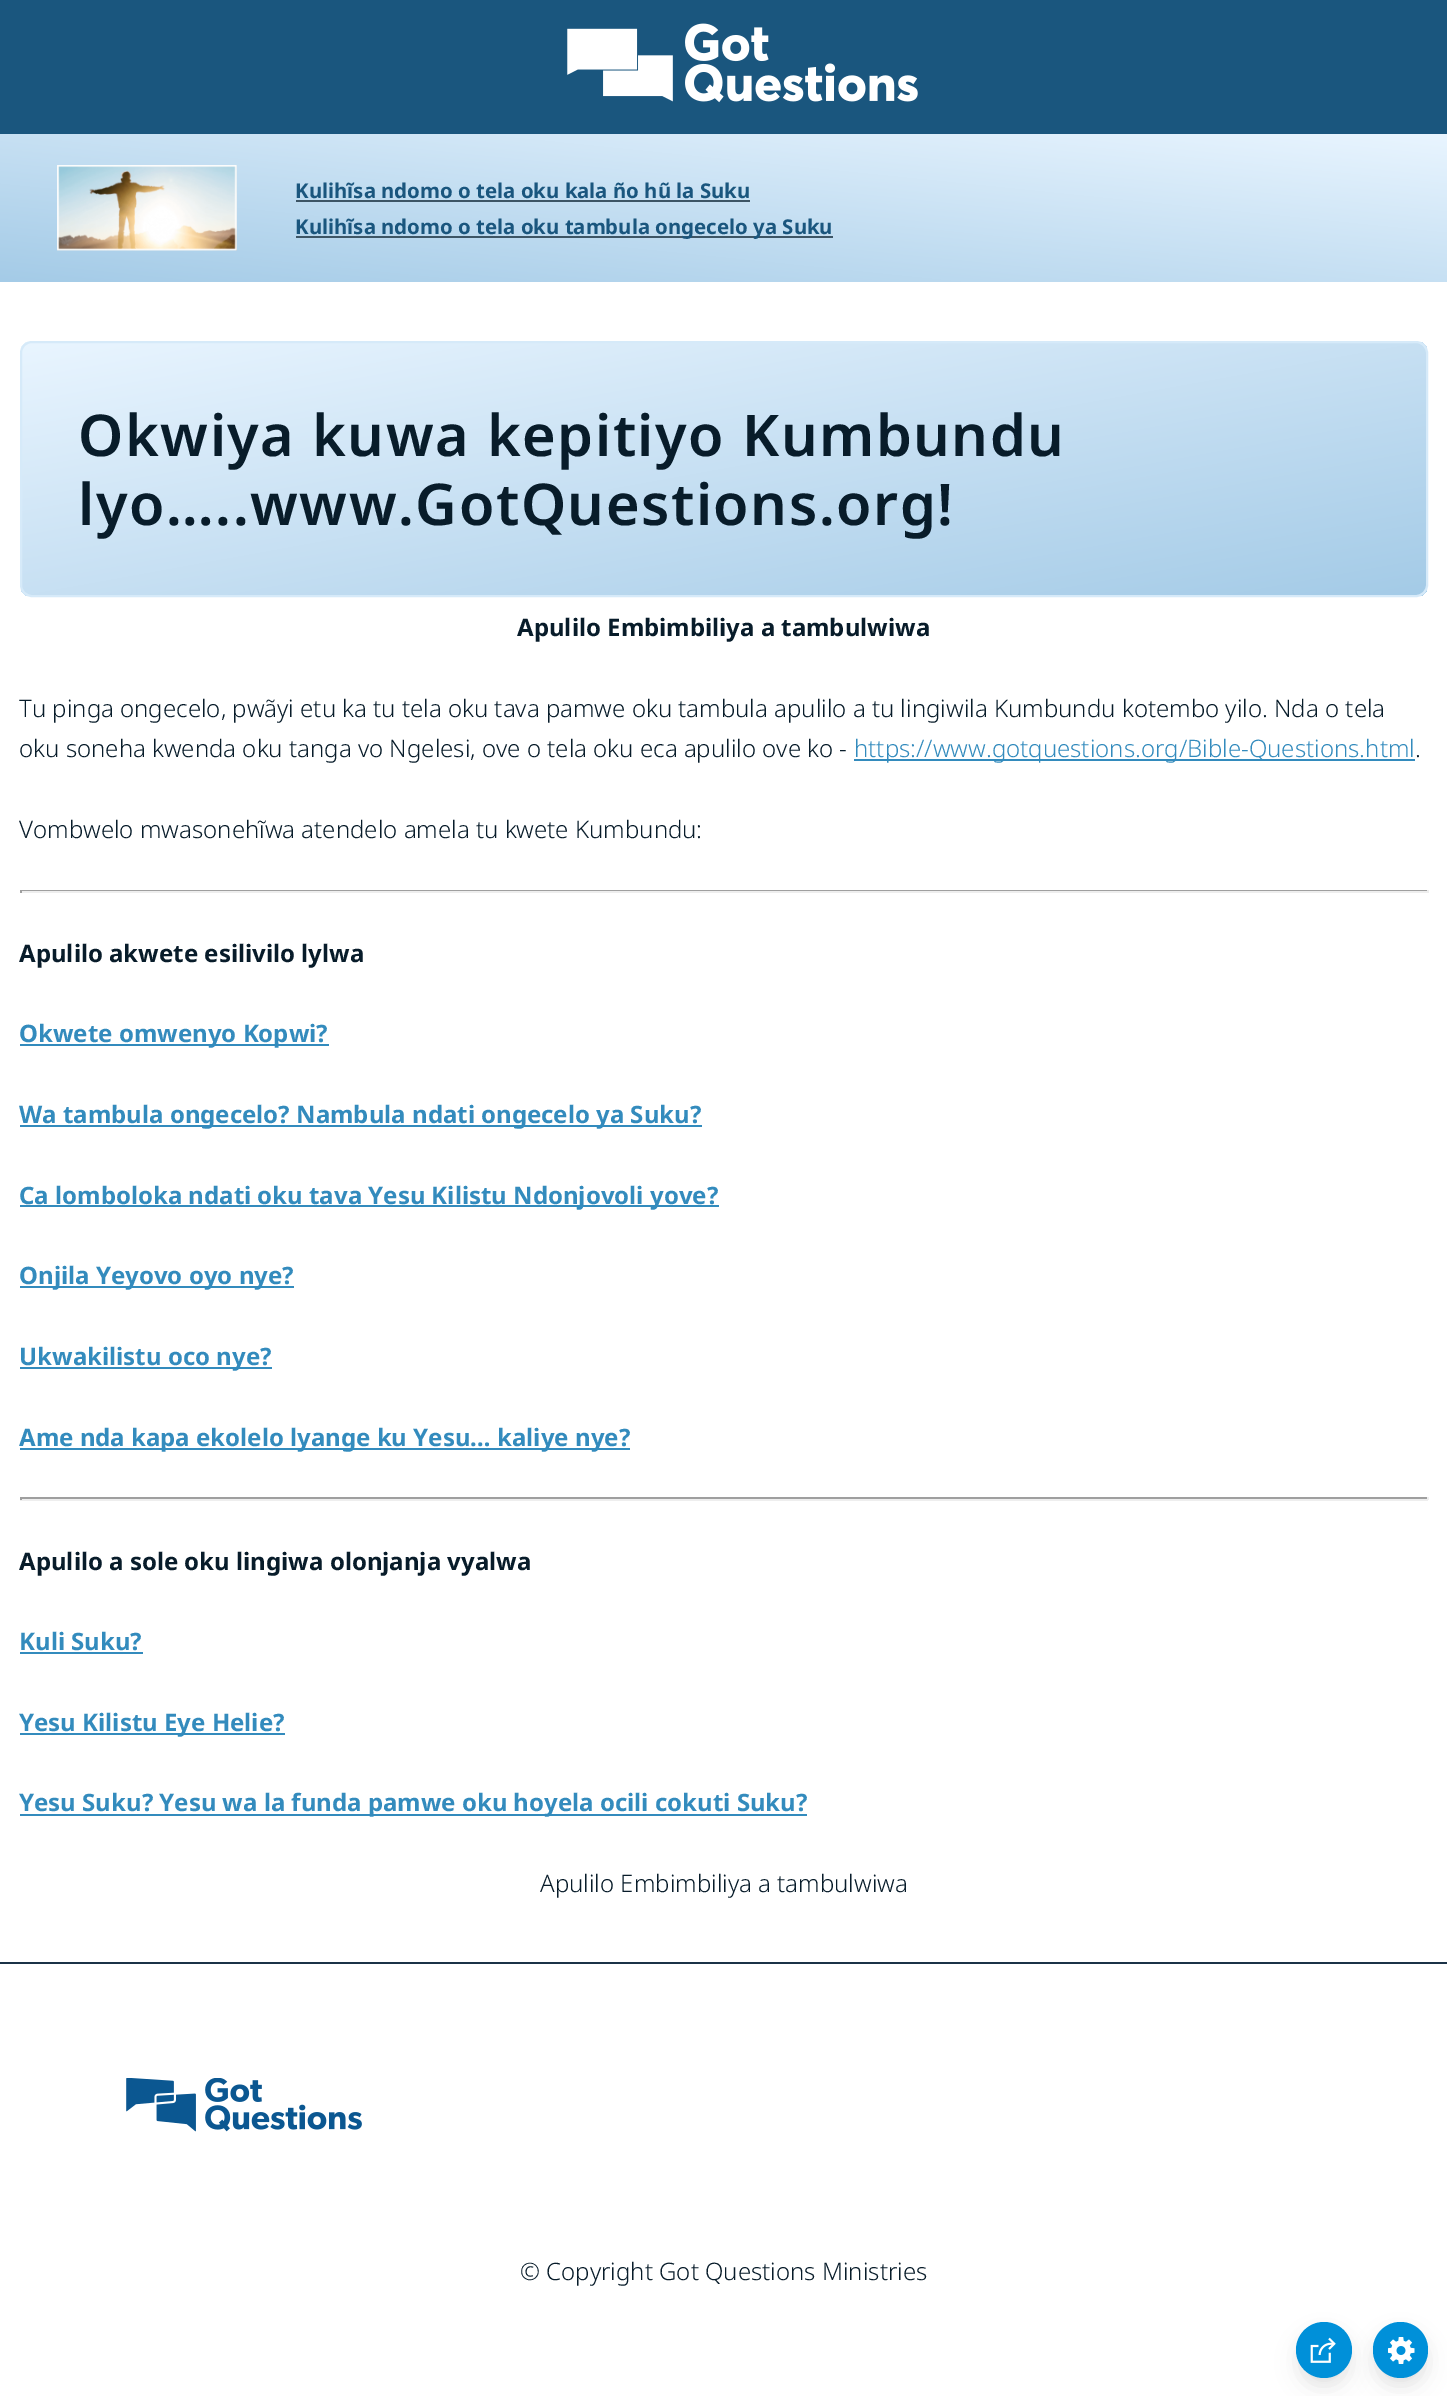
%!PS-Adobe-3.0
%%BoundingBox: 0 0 1447 2396
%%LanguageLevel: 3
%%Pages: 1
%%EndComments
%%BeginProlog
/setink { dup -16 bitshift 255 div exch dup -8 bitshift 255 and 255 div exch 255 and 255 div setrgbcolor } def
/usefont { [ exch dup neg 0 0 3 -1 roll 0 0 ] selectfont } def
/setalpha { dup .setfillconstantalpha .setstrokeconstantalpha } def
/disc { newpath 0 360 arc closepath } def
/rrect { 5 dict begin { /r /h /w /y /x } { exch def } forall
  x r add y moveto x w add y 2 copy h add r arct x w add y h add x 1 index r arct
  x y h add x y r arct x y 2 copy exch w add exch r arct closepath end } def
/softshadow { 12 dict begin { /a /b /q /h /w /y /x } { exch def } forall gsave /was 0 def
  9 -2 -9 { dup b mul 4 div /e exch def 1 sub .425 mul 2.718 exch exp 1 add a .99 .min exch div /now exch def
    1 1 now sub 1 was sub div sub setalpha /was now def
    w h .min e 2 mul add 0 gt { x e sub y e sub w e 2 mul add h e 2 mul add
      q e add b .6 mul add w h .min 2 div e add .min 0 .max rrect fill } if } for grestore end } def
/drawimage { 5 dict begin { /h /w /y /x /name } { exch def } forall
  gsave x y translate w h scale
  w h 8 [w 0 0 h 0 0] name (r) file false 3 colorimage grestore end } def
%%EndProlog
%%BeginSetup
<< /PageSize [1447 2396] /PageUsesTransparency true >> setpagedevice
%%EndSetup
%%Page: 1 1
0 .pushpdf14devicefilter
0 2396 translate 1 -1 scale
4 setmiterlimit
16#FFFFFF setink
0 0 1447 2396 rectfill
16#1A567E setink
0 0 1447 134 rectfill
(img1.raw) 567 23 351 80 drawimage
gsave 0 134 moveto 1447 134 lineto 1447 282 lineto 0 282 lineto closepath clip newpath
<< /ShadingType 2 /ColorSpace /DeviceRGB /Coords [709 355 739 61] /Extend [true true] /Function << /FunctionType 2 /Domain [0 1] /C0 [0.643 0.796 0.906] /C1 [0.914 0.961 1] /N 1 >> >> shfill grestore
(img2.raw) 57 165 180 86 drawimage
/NotoSans-Bold 20.4 usefont
295 198 moveto (Kulihĩsa ndomo o tela oku kala ño hũ la Suku) show
16#3D5565 setink
296 200 454 2 rectfill
296 236 537 2 rectfill
16#1A567E setink
295 234 moveto (Kulihĩsa ndomo o tela oku tambula ongecelo ya Suku) show
16#1B3247 setink
0 1962 1447 2 rectfill
gsave
20 341 1408 256 12 rrect clip newpath
gsave 21 342 moveto 1427 342 lineto 1427 596 lineto 21 596 lineto closepath clip newpath
<< /ShadingType 2 /ColorSpace /DeviceRGB /Coords [679 223 768 714] /Extend [true true] /Function << /FunctionType 2 /Domain [0 1] /C0 [0.914 0.961 1] /C1 [0.643 0.796 0.906] /N 1 >> >> shfill grestore
grestore
16#D6EAF9 setink
2 setlinewidth
21 342 1406 254 11 rrect stroke
/NotoSans-SemiBold 57.6 usefont
16#081C2A setink
78 456 moveto 1.5 0 (Okwiya kuwa kepitiyo Kumbundu) ashow
78 525 moveto 1.5 0 (lyo…..www.GotQuestions.org!) ashow
/NotoSans-Bold 24 usefont
517 636 moveto (Apulilo Embimbiliya a tambulwiwa) show
/NotoSans-Light 24 usefont
19 717 moveto (Tu pinga ongecelo, pwãyi etu ka tu tela oku tava pamwe oku tambula apulilo a tu lingiwila Kumbundu kotembo yilo. Nda o tela) show
19 757 moveto (oku soneha kwenda oku tanga vo Ngelesi, ove o tela oku eca apulilo ove ko -) show
16#338BBD setink
854 759 561 2 rectfill
854 757 moveto (https://www.gotquestions.org/Bible-Questions.html) show
16#081C2A setink
1415 757 moveto (.) show
19 838 moveto (Vombwelo mwasonehĩwa atendelo amela tu kwete Kumbundu:) show
[
    [20 890 1408 1 16#9F9F9F]
    [1427 890 2 3 16#EEEEEE]
    [20 891 1408 2 16#EEEEEE]
    [20 890 2 3 16#9F9F9F]
] { aload pop setink rectfill } forall
/NotoSans-Bold 24 usefont
16#081C2A setink
19 962 moveto (Apulilo akwete esilivilo lylwa) show
16#338BBD setink
20 1044 309 2 rectfill
19 1042 moveto (Okwete omwenyo Kopwi?) show
20 1125 682 2 rectfill
19 1123 moveto (Wa tambula ongecelo? Nambula ndati ongecelo ya Suku?) show
20 1205 699 2 rectfill
19 1204 moveto (Ca lomboloka ndati oku tava Yesu Kilistu Ndonjovoli yove?) show
20 1286 274 2 rectfill
19 1284 moveto (Onjila Yeyovo oyo nye?) show
20 1367 252 2 rectfill
19 1365 moveto (Ukwakilistu oco nye?) show
20 1448 610 2 rectfill
19 1446 moveto (Ame nda kapa ekolelo lyange ku Yesu… kaliye nye?) show
[
    [20 1497 1408 2 16#9F9F9F]
    [1427 1497 2 3 16#EEEEEE]
    [20 1499 1408 2 16#EEEEEE]
    [20 1497 2 3 16#9F9F9F]
] { aload pop setink rectfill } forall
16#081C2A setink
19 1570 moveto (Apulilo a sole oku lingiwa olonjanja vyalwa) show
16#338BBD setink
19 1650 moveto (Kuli Suku?) show
20 1652 123 2 rectfill
20 1733 265 2 rectfill
19 1731 moveto (Yesu Kilistu Eye Helie?) show
20 1814 787 2 rectfill
19 1811 moveto (Yesu Suku? Yesu wa la funda pamwe oku hoyela ocili cokuti Suku?) show
/NotoSans-Light 24 usefont
16#081C2A setink
540 1892 moveto (Apulilo Embimbiliya a tambulwiwa) show
(img3.raw) 126 2078 236 54 drawimage
520 2280 moveto (© Copyright Got Questions Ministries) show
16#000000 setink
1301 2331 46 47 23 8 0.05 softshadow
1377 2331 47 47 23.5 8 0.05 softshadow
1377 2339 47 46 23 12 0.1 softshadow
16#0090D9 setink
1373 2322 55 56 27.5 rrect fill
16#000000 setink
1301 2339 46 46 23 12 0.1 softshadow
16#0090D9 setink
1324 2350 28 disc fill
(img4.raw) 1310 2337 26 26 drawimage
(img5.raw) 1388 2337 27 27 drawimage
.poppdf14devicefilter showpage
%%EOF
